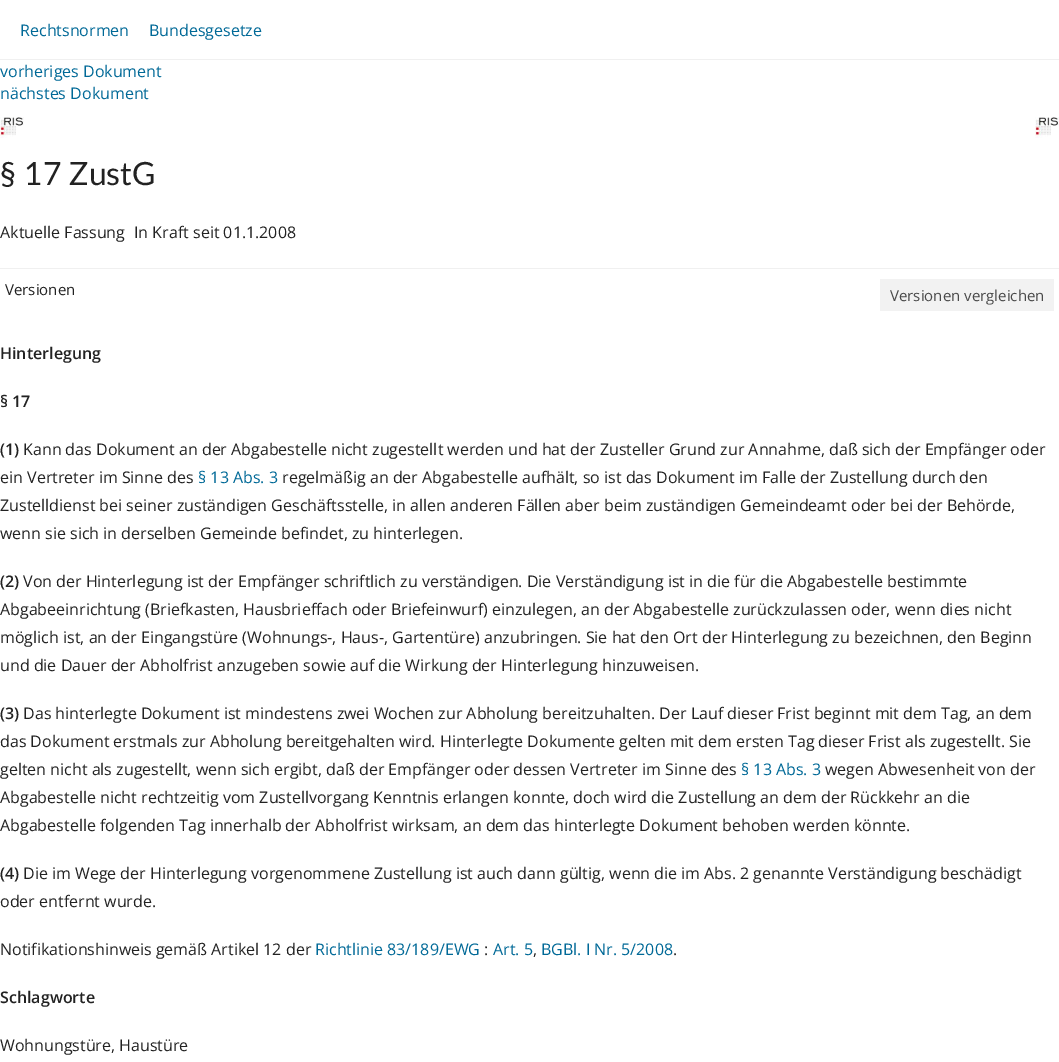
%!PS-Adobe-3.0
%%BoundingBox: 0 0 1059 1062
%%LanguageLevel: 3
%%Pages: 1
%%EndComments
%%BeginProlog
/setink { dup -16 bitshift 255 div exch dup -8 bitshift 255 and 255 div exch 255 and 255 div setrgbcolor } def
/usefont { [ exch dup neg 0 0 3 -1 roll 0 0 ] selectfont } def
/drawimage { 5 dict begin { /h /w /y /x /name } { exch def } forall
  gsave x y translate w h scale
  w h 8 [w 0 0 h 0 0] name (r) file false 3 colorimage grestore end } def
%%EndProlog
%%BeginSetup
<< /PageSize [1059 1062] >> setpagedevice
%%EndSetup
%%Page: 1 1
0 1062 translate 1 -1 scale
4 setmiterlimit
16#FFFFFF setink
0 0 1059 1062 rectfill
16#F0F0F0 setink
0 59 1059 1 rectfill
/OpenSans-Regular 16 usefont
16#006997 setink
[
    [(Rechtsnormen) 20 36]
    [(Bundesgesetze) 149 36]
    [(vorheriges Dokument) 0 77]
    [(nächstes Dokument) 0 99]
] { aload pop moveto show } forall
(img1.raw) 1035 117 24 21 drawimage
(img1.raw) 0 117 24 21 drawimage
/Lato-Regular 32 usefont
16#222222 setink
0 185 moveto (§ 17 ZustG) show
/OpenSans-Regular 16 usefont
0 238 moveto (Aktuelle Fassung) show
134 238 moveto (In Kraft seit 01.1.2008) show
16#F0F0F0 setink
0 268 1059 1 rectfill
/OpenSans-Regular 15 usefont
16#222222 setink
5 295 moveto (Versionen) show
16#F2F2F2 setink
880 279 174 32 rectfill
16#4A4A4A setink
890 301 moveto (Versionen vergleichen) show
/OpenSans-SemiBold 16 usefont
16#222222 setink
[
    [(Hinterlegung) 0 359]
    [(§ 17) 0 407]
    [(\(1\)) 0 455]
] { aload pop moveto show } forall
/OpenSans-Regular 16 usefont
23 455 moveto (Kann das Dokument an der Abgabestelle nicht zugestellt werden und hat der Zusteller Grund zur Annahme, daß sich der Empfänger oder) show
0 483 moveto (ein Vertreter im Sinne des) show
16#006997 setink
198 483 moveto (§ 13 Abs. 3) show
16#222222 setink
[
    [(regelmäßig an der Abgabestelle aufhält, so ist das Dokument im Falle der Zustellung durch den) 282 483]
    [(Zustelldienst bei seiner zuständigen Geschäftsstelle, in allen anderen Fällen aber beim zuständigen Gemeindeamt oder bei der Behörde,) 0 511]
    [(wenn sie sich in derselben Gemeinde befindet, zu hinterlegen.) 0 539]
] { aload pop moveto show } forall
/OpenSans-SemiBold 16 usefont
0 587 moveto (\(2\)) show
/OpenSans-Regular 16 usefont
[
    [(Von der Hinterlegung ist der Empfänger schriftlich zu verständigen. Die Verständigung ist in die für die Abgabestelle bestimmte) 23 587]
    [(Abgabeeinrichtung \(Briefkasten, Hausbrieffach oder Briefeinwurf\) einzulegen, an der Abgabestelle zurückzulassen oder, wenn dies nicht) 0 615]
    [(möglich ist, an der Eingangstüre \(Wohnungs-, Haus-, Gartentüre\) anzubringen. Sie hat den Ort der Hinterlegung zu bezeichnen, den Beginn) 0 643]
    [(und die Dauer der Abholfrist anzugeben sowie auf die Wirkung der Hinterlegung hinzuweisen.) 0 671]
] { aload pop moveto show } forall
/OpenSans-SemiBold 16 usefont
0 719 moveto (\(3\)) show
/OpenSans-Regular 16 usefont
[
    [(Das hinterlegte Dokument ist mindestens zwei Wochen zur Abholung bereitzuhalten. Der Lauf dieser Frist beginnt mit dem Tag, an dem) 23 719]
    [(das Dokument erstmals zur Abholung bereitgehalten wird. Hinterlegte Dokumente gelten mit dem ersten Tag dieser Frist als zugestellt. Sie) 0 747]
    [(gelten nicht als zugestellt, wenn sich ergibt, daß der Empfänger oder dessen Vertreter im Sinne des) 0 775]
] { aload pop moveto show } forall
16#006997 setink
741 775 moveto (§ 13 Abs. 3) show
16#222222 setink
[
    [(wegen Abwesenheit von der) 825 775]
    [(Abgabestelle nicht rechtzeitig vom Zustellvorgang Kenntnis erlangen konnte, doch wird die Zustellung an dem der Rückkehr an die) 0 803]
    [(Abgabestelle folgenden Tag innerhalb der Abholfrist wirksam, an dem das hinterlegte Dokument behoben werden könnte.) 0 831]
] { aload pop moveto show } forall
/OpenSans-SemiBold 16 usefont
0 879 moveto (\(4\)) show
/OpenSans-Regular 16 usefont
[
    [(Die im Wege der Hinterlegung vorgenommene Zustellung ist auch dann gültig, wenn die im Abs. 2 genannte Verständigung beschädigt) 23 879]
    [(oder entfernt wurde.) 0 907]
    [(Notifikationshinweis gemäß Artikel 12 der) 0 955]
] { aload pop moveto show } forall
16#006997 setink
315 955 moveto (Richtlinie 83/189/EWG) show
16#222222 setink
484 955 moveto (:) show
16#006997 setink
493 955 moveto (Art. 5) show
16#222222 setink
533 955 moveto (,) show
16#006997 setink
541 955 moveto (BGBl. I Nr. 5/2008) show
16#222222 setink
673 955 moveto (.) show
/OpenSans-SemiBold 16 usefont
0 1003 moveto (Schlagworte) show
/OpenSans-Regular 16 usefont
0 1051 moveto (Wohnungstüre, Haustüre) show
showpage
%%EOF
